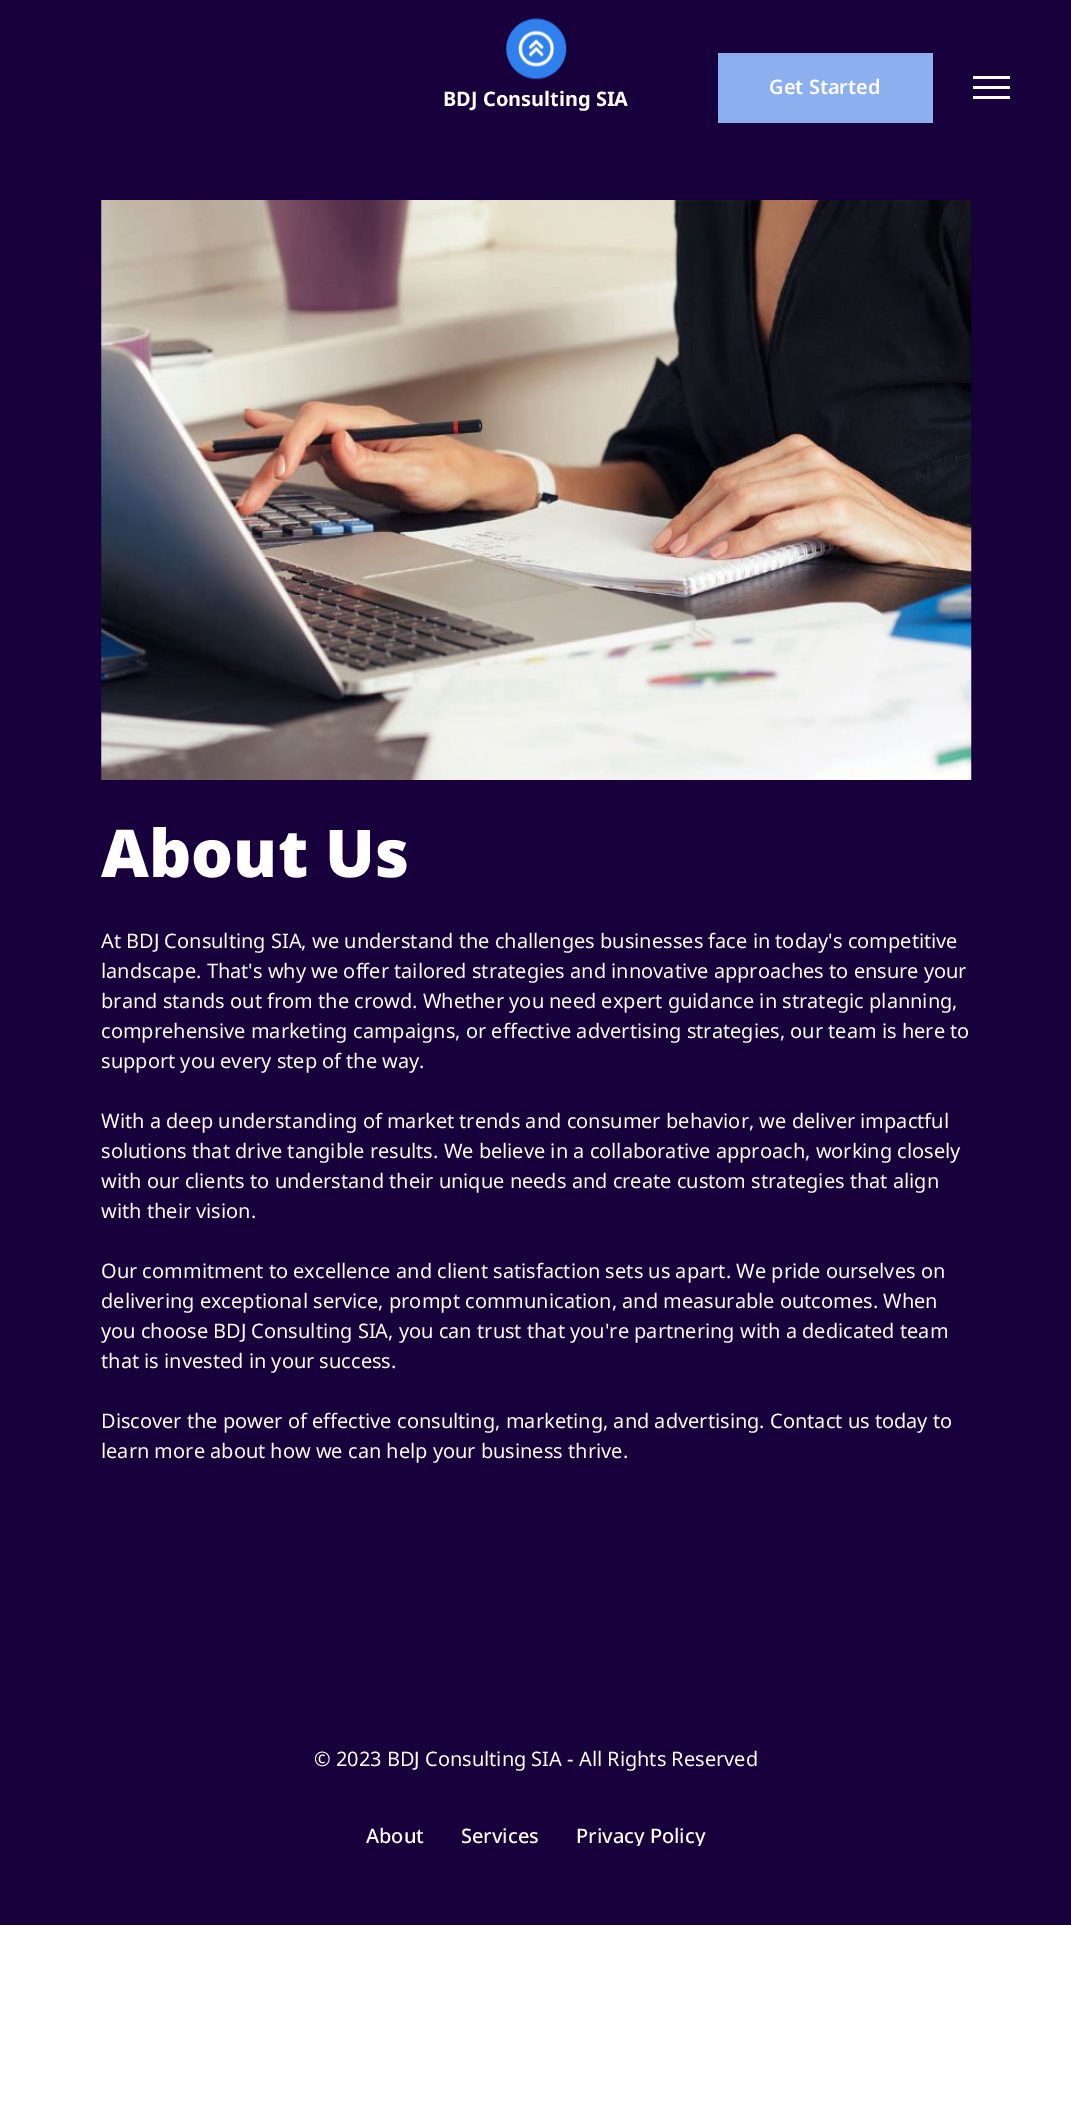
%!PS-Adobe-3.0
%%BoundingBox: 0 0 1071 2110
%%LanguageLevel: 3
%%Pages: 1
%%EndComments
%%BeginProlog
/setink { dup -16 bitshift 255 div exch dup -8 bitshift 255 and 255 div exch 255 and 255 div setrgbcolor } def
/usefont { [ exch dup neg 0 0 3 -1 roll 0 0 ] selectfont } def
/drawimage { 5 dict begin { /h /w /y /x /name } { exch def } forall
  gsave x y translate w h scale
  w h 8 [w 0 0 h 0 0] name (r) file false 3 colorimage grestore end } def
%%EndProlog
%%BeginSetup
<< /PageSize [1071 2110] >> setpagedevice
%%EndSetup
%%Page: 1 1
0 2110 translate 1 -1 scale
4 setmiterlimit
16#FFFFFF setink
0 0 1071 2110 rectfill
16#17003B setink
0 0 1071 1925 rectfill
16#8CAFF0 setink
718 53 215 70 rectfill
/NotoSans-SemiBold 20 usefont
16#FFFFFF setink
769 94 moveto (Get Started) show
[
    [973 76 37 3 16#FFFFFF]
    [973 86 37 3 16#FFFFFF]
    [973 96 37 3 16#FFFFFF]
] { aload pop setink rectfill } forall
(img1.raw) 506 18 61 62 drawimage
/NotoSans-Bold 20 usefont
443 106 moveto (BDJ Consulting SIA) show
(img2.raw) 101 200 871 580 drawimage
/NotoSans-Black 66 usefont
101 877 moveto (About Us) show
/NotoSans-Regular 20 usefont
[
    [(At BDJ Consulting SIA, we understand the challenges businesses face in today's competitive) 101 948]
    [(landscape. That's why we offer tailored strategies and innovative approaches to ensure your) 101 978]
    [(brand stands out from the crowd. Whether you need expert guidance in strategic planning,) 101 1008]
    [(comprehensive marketing campaigns, or effective advertising strategies, our team is here to) 101 1038]
    [(support you every step of the way.) 101 1068]
    [(With a deep understanding of market trends and consumer behavior, we deliver impactful) 101 1128]
    [(solutions that drive tangible results. We believe in a collaborative approach, working closely) 101 1158]
    [(with our clients to understand their unique needs and create custom strategies that align) 101 1188]
    [(with their vision.) 101 1218]
    [(Our commitment to excellence and client satisfaction sets us apart. We pride ourselves on) 101 1278]
    [(delivering exceptional service, prompt communication, and measurable outcomes. When) 101 1308]
    [(you choose BDJ Consulting SIA, you can trust that you're partnering with a dedicated team) 101 1338]
    [(that is invested in your success.) 101 1368]
    [(Discover the power of effective consulting, marketing, and advertising. Contact us today to) 101 1428]
    [(learn more about how we can help your business thrive.) 101 1458]
    [(© 2023 BDJ Consulting SIA - All Rights Reserved) 314 1766]
] { aload pop moveto show } forall
/NotoSans-Medium 20 usefont
366 1843 moveto (About) show
461 1843 moveto (Services) show
gsave
576 1826 130 20 rectclip
576 1843 moveto (Privacy Policy) show
grestore
showpage
%%EOF
